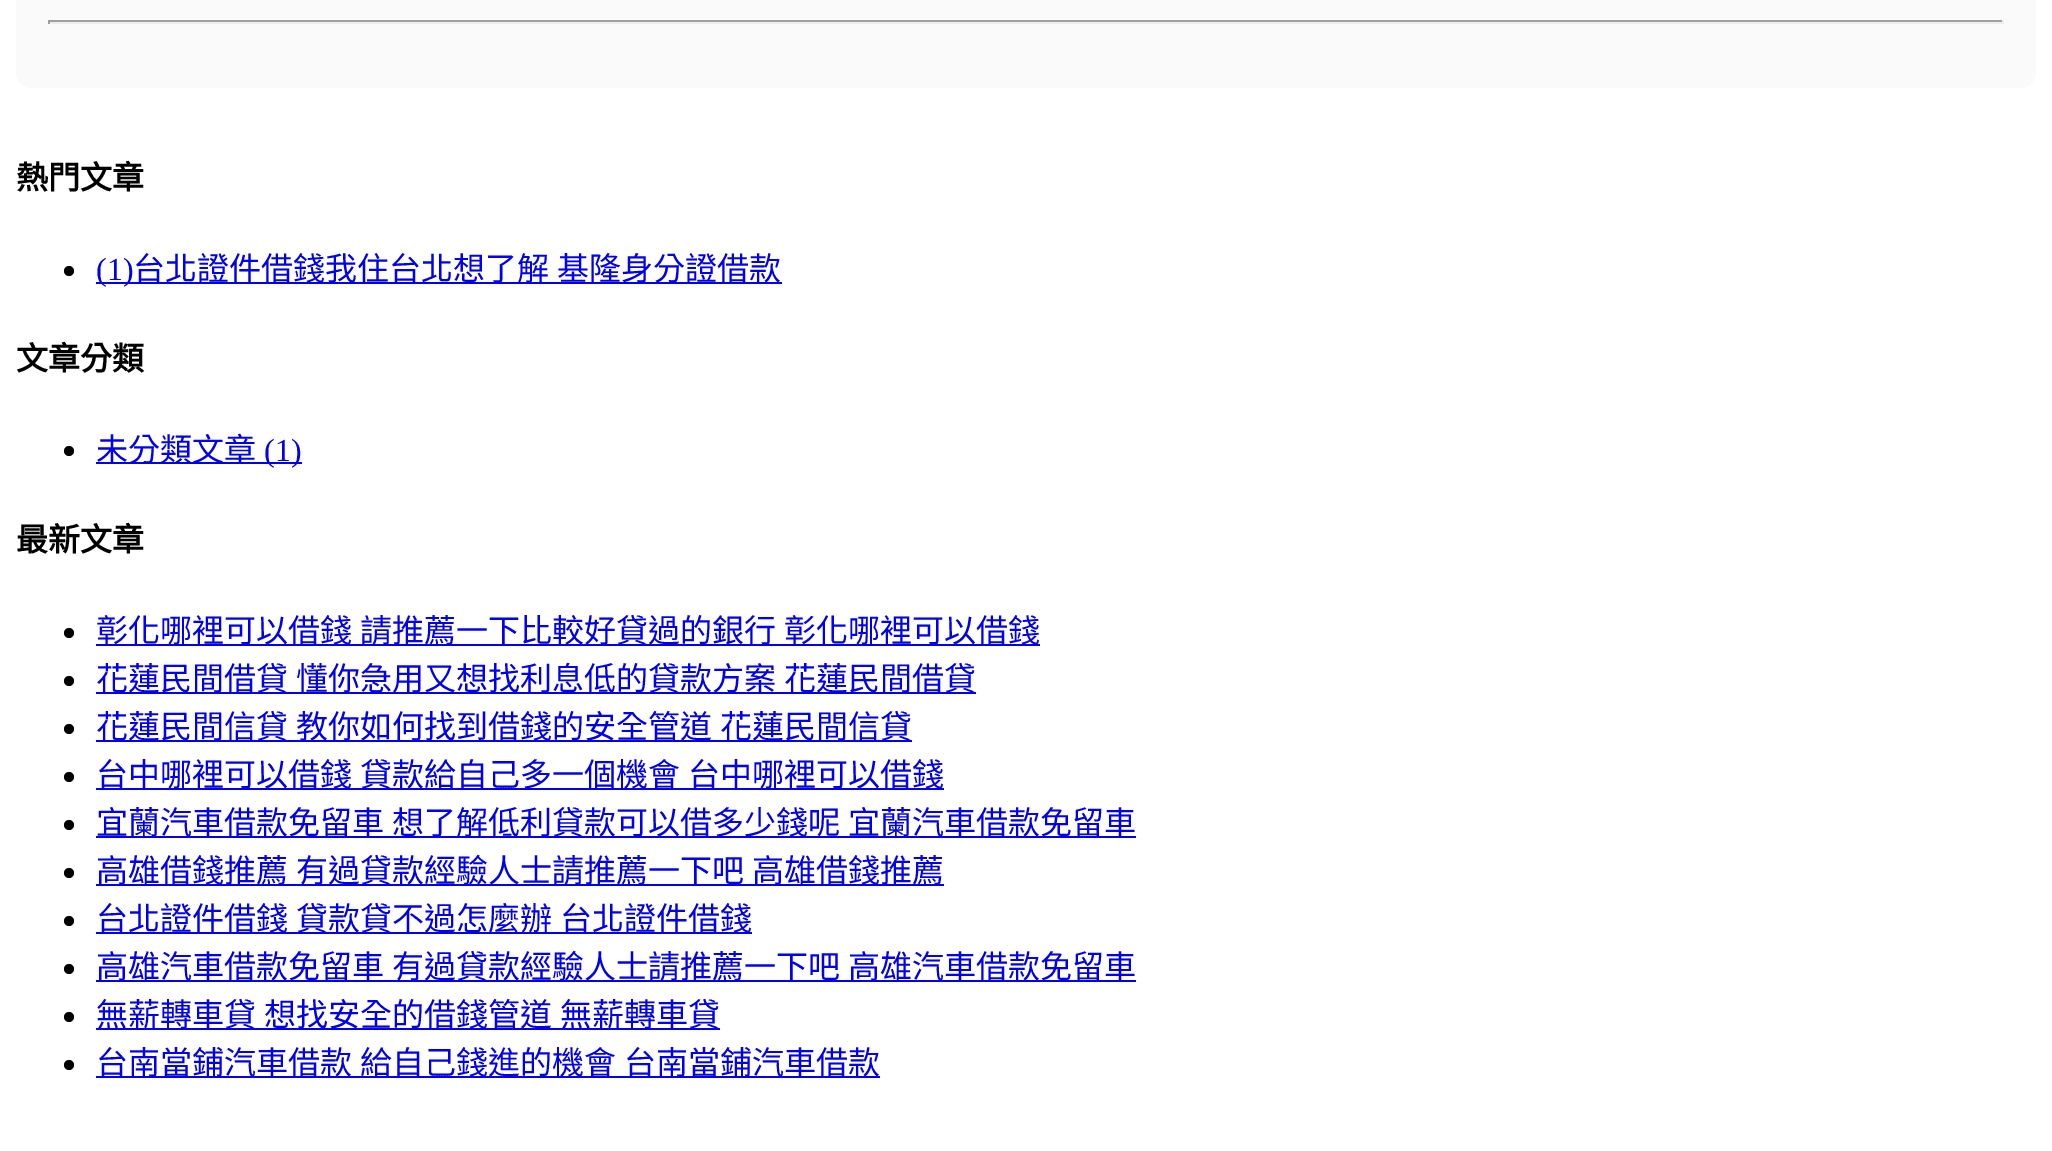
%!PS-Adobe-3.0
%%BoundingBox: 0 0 2052 1151
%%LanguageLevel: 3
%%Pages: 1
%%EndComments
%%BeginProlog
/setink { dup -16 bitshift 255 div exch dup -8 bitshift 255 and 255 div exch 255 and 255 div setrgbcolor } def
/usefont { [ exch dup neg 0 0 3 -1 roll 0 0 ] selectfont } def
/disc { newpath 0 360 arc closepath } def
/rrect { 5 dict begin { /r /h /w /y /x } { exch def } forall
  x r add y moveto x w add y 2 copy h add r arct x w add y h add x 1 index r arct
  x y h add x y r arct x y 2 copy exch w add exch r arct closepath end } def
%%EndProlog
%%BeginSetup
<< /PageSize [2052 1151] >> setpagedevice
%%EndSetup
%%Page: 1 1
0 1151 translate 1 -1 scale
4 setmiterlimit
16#FFFFFF setink
0 0 2052 1151 rectfill
16#FAFAFA setink
16 -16 2020 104 16 rrect fill
[
    [48 20 1956 2 16#9F9F9F]
    [2002 20 2 4 16#EEEEEE]
    [48 22 1956 2 16#EEEEEE]
    [48 20 2 4 16#9F9F9F]
] { aload pop setink rectfill } forall
/NotoSansCJKTC-Bold 32 usefont
16#000000 setink
16 189 moveto (熱門文章) show
69 271 5 disc fill
16#0000EE setink
96 282 686 2 rectfill
/LiberationSerif-Regular 32 usefont
96 280 moveto (\(1\)) show
/NotoSansCJKTC-Regular 32 usefont
133 280 moveto 1 0 32 (台北證件借錢我住台北想了解 基隆身分證借款) widthshow
/NotoSansCJKTC-Bold 32 usefont
16#000000 setink
16 370 moveto (文章分類) show
69 451 5 disc fill
16#0000EE setink
96 462 206 2 rectfill
/NotoSansCJKTC-Regular 32 usefont
96 461 moveto (未分類文章) show
/LiberationSerif-Regular 32 usefont
264 461 moveto (\(1\)) show
/NotoSansCJKTC-Bold 32 usefont
16#000000 setink
16 551 moveto (最新文章) show
69 633 5 disc fill
16#0000EE setink
96 644 944 2 rectfill
/NotoSansCJKTC-Regular 32 usefont
96 642 moveto 1 0 32 (彰化哪裡可以借錢 請推薦一下比較好貸過的銀行 彰化哪裡可以借錢) widthshow
16#000000 setink
69 681 5 disc fill
16#0000EE setink
96 692 880 2 rectfill
96 690 moveto 1 0 32 (花蓮民間借貸 懂你急用又想找利息低的貸款方案 花蓮民間借貸) widthshow
16#000000 setink
69 729 5 disc fill
16#0000EE setink
96 740 816 2 rectfill
96 738 moveto 1 0 32 (花蓮民間信貸 教你如何找到借錢的安全管道 花蓮民間信貸) widthshow
16#000000 setink
69 777 5 disc fill
16#0000EE setink
96 788 848 2 rectfill
96 786 moveto 1 0 32 (台中哪裡可以借錢 貸款給自己多一個機會 台中哪裡可以借錢) widthshow
16#000000 setink
69 825 5 disc fill
16#0000EE setink
96 836 1040 2 rectfill
96 834 moveto 1 0 32 (宜蘭汽車借款免留車 想了解低利貸款可以借多少錢呢 宜蘭汽車借款免留車) widthshow
16#000000 setink
69 873 5 disc fill
16#0000EE setink
96 884 848 2 rectfill
96 882 moveto 1 0 32 (高雄借錢推薦 有過貸款經驗人士請推薦一下吧 高雄借錢推薦) widthshow
16#000000 setink
69 921 5 disc fill
16#0000EE setink
96 932 656 2 rectfill
96 930 moveto 1 0 32 (台北證件借錢 貸款貸不過怎麼辦 台北證件借錢) widthshow
16#000000 setink
69 969 5 disc fill
16#0000EE setink
96 980 1040 2 rectfill
96 978 moveto 1 0 32 (高雄汽車借款免留車 有過貸款經驗人士請推薦一下吧 高雄汽車借款免留車) widthshow
16#000000 setink
69 1017 5 disc fill
16#0000EE setink
96 1028 624 2 rectfill
96 1026 moveto 1 0 32 (無薪轉車貸 想找安全的借錢管道 無薪轉車貸) widthshow
16#000000 setink
69 1065 5 disc fill
16#0000EE setink
96 1076 784 2 rectfill
96 1074 moveto 1 0 32 (台南當鋪汽車借款 給自己錢進的機會 台南當鋪汽車借款) widthshow
showpage
%%EOF
